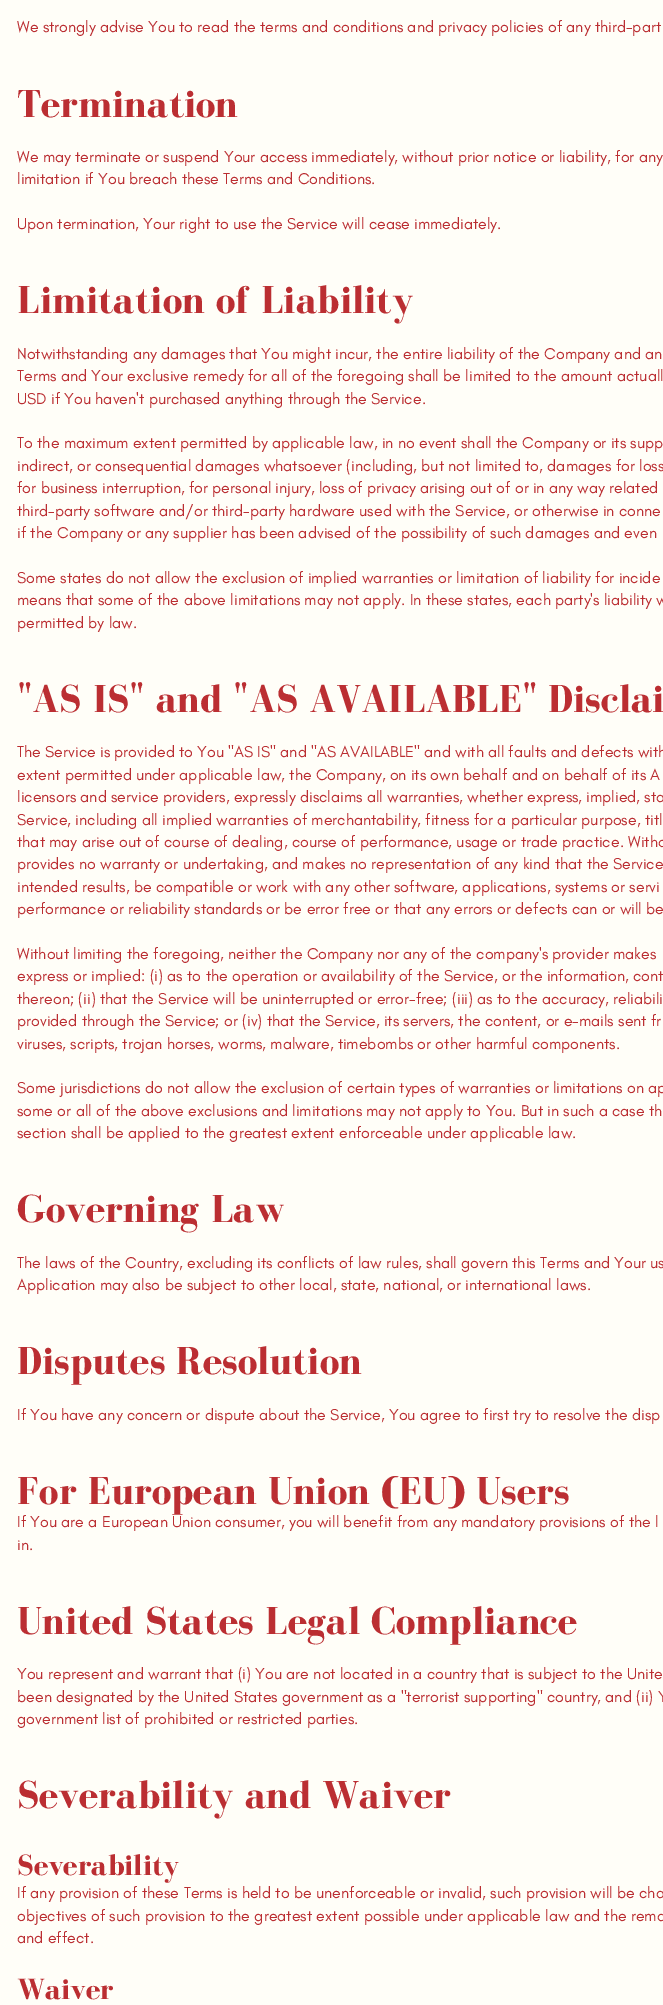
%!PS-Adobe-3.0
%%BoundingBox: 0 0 663 2005
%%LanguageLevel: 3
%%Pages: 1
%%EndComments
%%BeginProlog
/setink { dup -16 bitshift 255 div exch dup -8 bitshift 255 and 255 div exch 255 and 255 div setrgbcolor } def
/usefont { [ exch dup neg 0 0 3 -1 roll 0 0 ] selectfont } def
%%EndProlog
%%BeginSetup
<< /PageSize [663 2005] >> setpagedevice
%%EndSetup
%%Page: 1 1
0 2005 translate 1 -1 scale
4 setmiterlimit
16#FFFEF8 setink
0 0 663 2005 rectfill
/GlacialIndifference-Regular 16 usefont
16#BB2E32 setink
17 32 moveto (We strongly advise You to read the terms and conditions and privacy policies of any third-part) show
/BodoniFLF-Bold 40 usefont
17 117 moveto (Termination) show
/GlacialIndifference-Regular 16 usefont
[
    [(We may terminate or suspend Your access immediately, without prior notice or liability, for any) 17 162]
    [(limitation if You breach these Terms and Conditions.) 17 184]
    [(Upon termination, Your right to use the Service will cease immediately.) 17 229]
] { aload pop moveto show } forall
/BodoniFLF-Bold 40 usefont
17 313 moveto (Limitation of Liability) show
/GlacialIndifference-Regular 16 usefont
[
    [(Notwithstanding any damages that You might incur, the entire liability of the Company and an) 17 359]
    [(Terms and Your exclusive remedy for all of the foregoing shall be limited to the amount actuall) 17 381]
    [(USD if You haven't purchased anything through the Service.) 17 404]
    [(To the maximum extent permitted by applicable law, in no event shall the Company or its supp) 17 448]
    [(indirect, or consequential damages whatsoever \(including, but not limited to, damages for loss) 17 471]
    [(for business interruption, for personal injury, loss of privacy arising out of or in any way related) 17 493]
    [(third-party software and/or third-party hardware used with the Service, or otherwise in conne) 17 516]
    [(if the Company or any supplier has been advised of the possibility of such damages and even) 17 538]
    [(Some states do not allow the exclusion of implied warranties or limitation of liability for incide) 17 583]
    [(means that some of the above limitations may not apply. In these states, each party's liability w) 17 605]
    [(permitted by law.) 17 628]
] { aload pop moveto show } forall
/BodoniFLF-Bold 40 usefont
17 712 moveto ("AS IS" and "AS AVAILABLE" Disclai) show
/GlacialIndifference-Regular 16 usefont
[
    [(The Service is provided to You "AS IS" and "AS AVAILABLE" and with all faults and defects with) 17 757]
    [(extent permitted under applicable law, the Company, on its own behalf and on behalf of its A) 17 780]
    [(licensors and service providers, expressly disclaims all warranties, whether express, implied, sta) 17 802]
    [(Service, including all implied warranties of merchantability, fitness for a particular purpose, titl) 17 825]
    [(that may arise out of course of dealing, course of performance, usage or trade practice. Witho) 17 847]
    [(provides no warranty or undertaking, and makes no representation of any kind that the Service) 17 869]
    [(intended results, be compatible or work with any other software, applications, systems or servi) 17 892]
    [(performance or reliability standards or be error free or that any errors or defects can or will be) 17 914]
    [(Without limiting the foregoing, neither the Company nor any of the company's provider makes) 17 959]
    [(express or implied: \(i\) as to the operation or availability of the Service, or the information, cont) 17 981]
    [(thereon; \(ii\) that the Service will be uninterrupted or error-free; \(iii\) as to the accuracy, reliabili) 17 1004]
    [(provided through the Service; or \(iv\) that the Service, its servers, the content, or e-mails sent fr) 17 1026]
    [(viruses, scripts, trojan horses, worms, malware, timebombs or other harmful components.) 17 1049]
    [(Some jurisdictions do not allow the exclusion of certain types of warranties or limitations on ap) 17 1093]
    [(some or all of the above exclusions and limitations may not apply to You. But in such a case th) 17 1116]
    [(section shall be applied to the greatest extent enforceable under applicable law.) 17 1138]
] { aload pop moveto show } forall
/BodoniFLF-Bold 40 usefont
17 1222 moveto (Governing Law) show
/GlacialIndifference-Regular 16 usefont
17 1268 moveto (The laws of the Country, excluding its conflicts of law rules, shall govern this Terms and Your us) show
17 1290 moveto (Application may also be subject to other local, state, national, or international laws.) show
/BodoniFLF-Bold 40 usefont
17 1374 moveto (Disputes Resolution) show
/GlacialIndifference-Regular 16 usefont
17 1420 moveto (If You have any concern or dispute about the Service, You agree to first try to resolve the disp) show
/BodoniFLF-Bold 40 usefont
17 1504 moveto (For European Union \(EU\) Users) show
/GlacialIndifference-Regular 16 usefont
17 1527 moveto (If You are a European Union consumer, you will benefit from any mandatory provisions of the l) show
17 1550 moveto (in.) show
/BodoniFLF-Bold 40 usefont
17 1634 moveto (United States Legal Compliance) show
/GlacialIndifference-Regular 16 usefont
[
    [(You represent and warrant that \(i\) You are not located in a country that is subject to the Unite) 17 1679]
    [(been designated by the United States government as a "terrorist supporting" country, and \(ii\) Y) 17 1702]
    [(government list of prohibited or restricted parties.) 17 1724]
] { aload pop moveto show } forall
/BodoniFLF-Bold 40 usefont
17 1808 moveto (Severability and Waiver) show
/BodoniFLF-Bold 30 usefont
17 1875 moveto (Severability) show
/GlacialIndifference-Regular 16 usefont
[
    [(If any provision of these Terms is held to be unenforceable or invalid, such provision will be cha) 17 1898]
    [(objectives of such provision to the greatest extent possible under applicable law and the rema) 17 1921]
    [(and effect.) 17 1943]
] { aload pop moveto show } forall
/BodoniFLF-Bold 30 usefont
17 1999 moveto (Waiver) show
showpage
%%EOF
